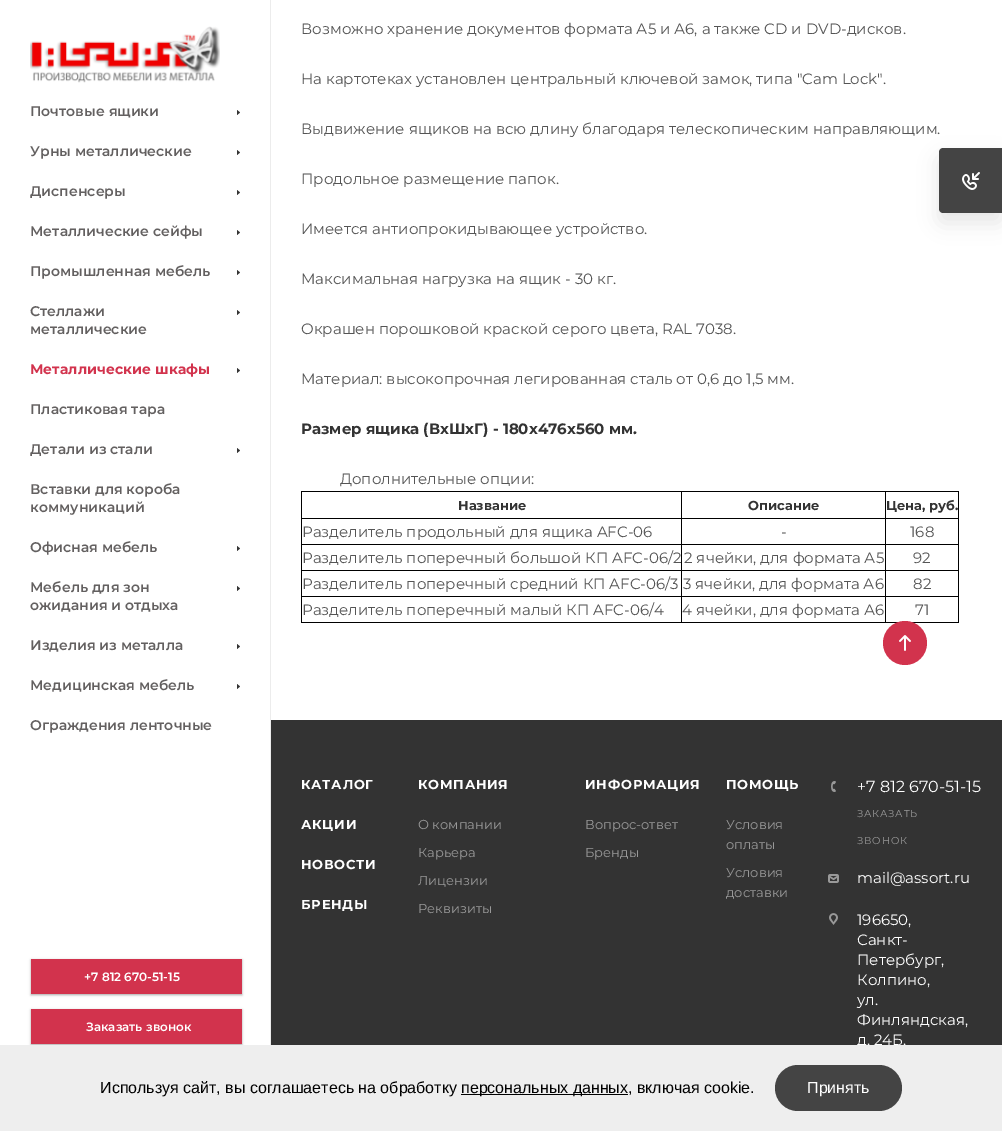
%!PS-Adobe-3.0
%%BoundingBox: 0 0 1002 1131
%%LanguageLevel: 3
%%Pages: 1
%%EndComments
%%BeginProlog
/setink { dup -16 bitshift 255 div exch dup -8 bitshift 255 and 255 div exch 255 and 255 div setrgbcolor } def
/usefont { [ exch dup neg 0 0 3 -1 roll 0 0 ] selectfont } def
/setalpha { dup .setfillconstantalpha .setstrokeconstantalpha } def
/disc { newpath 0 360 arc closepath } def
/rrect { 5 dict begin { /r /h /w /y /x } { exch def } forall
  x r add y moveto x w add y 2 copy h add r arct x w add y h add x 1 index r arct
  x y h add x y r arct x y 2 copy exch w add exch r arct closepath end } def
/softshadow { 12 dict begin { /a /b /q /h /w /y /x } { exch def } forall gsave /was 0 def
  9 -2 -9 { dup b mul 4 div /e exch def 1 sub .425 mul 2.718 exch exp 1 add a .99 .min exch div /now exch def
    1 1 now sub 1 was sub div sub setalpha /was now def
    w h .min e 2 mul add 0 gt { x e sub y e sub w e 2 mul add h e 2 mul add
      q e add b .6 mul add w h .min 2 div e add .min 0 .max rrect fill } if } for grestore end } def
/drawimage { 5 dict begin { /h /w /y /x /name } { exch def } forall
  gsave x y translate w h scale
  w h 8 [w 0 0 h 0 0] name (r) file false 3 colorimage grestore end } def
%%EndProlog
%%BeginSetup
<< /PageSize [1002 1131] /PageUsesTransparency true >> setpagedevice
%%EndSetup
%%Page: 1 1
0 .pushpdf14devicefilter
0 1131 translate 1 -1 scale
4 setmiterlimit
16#FFFFFF setink
0 0 1002 1131 rectfill
16#ECECEC setink
270 0 1 1045 rectfill
(img1.raw) 30 26 190 57 drawimage
/Montserrat-SemiBold 14 usefont
16#636060 setink
30 116 moveto (Почтовые ящики) show
16#333333 setink
237 115 moveto 237 110 lineto 240 112.5 lineto closepath eofill
16#636060 setink
30 156 moveto (Урны металлические) show
16#333333 setink
237 155 moveto 237 150 lineto 240 152.5 lineto closepath eofill
16#636060 setink
30 196 moveto (Диспенсеры) show
16#333333 setink
237 195 moveto 237 190 lineto 240 192.5 lineto closepath eofill
16#636060 setink
30 236 moveto (Металлические сейфы) show
16#333333 setink
237 235 moveto 237 230 lineto 240 232.5 lineto closepath eofill
16#636060 setink
30 276 moveto (Промышленная мебель) show
16#333333 setink
237 275 moveto 237 270 lineto 240 272.5 lineto closepath eofill
16#636060 setink
30 316 moveto (Стеллажи) show
16#333333 setink
237 315 moveto 237 310 lineto 240 312.5 lineto closepath eofill
16#636060 setink
30 334 moveto (металлические) show
/Montserrat-Bold 14 usefont
16#D2334D setink
30 374 moveto (Металлические шкафы) show
16#333333 setink
237 373 moveto 237 368 lineto 240 370.5 lineto closepath eofill
/Montserrat-SemiBold 14 usefont
16#636060 setink
30 414 moveto (Пластиковая тара) show
30 454 moveto (Детали из стали) show
16#333333 setink
237 453 moveto 237 448 lineto 240 450.5 lineto closepath eofill
16#636060 setink
[
    [(Вставки для короба) 30 494]
    [(коммуникаций) 30 512]
    [(Офисная мебель) 30 552]
] { aload pop moveto show } forall
16#333333 setink
237 551 moveto 237 546 lineto 240 548.5 lineto closepath eofill
16#636060 setink
30 592 moveto (Мебель для зон) show
16#333333 setink
237 591 moveto 237 586 lineto 240 588.5 lineto closepath eofill
16#636060 setink
30 610 moveto (ожидания и отдыха) show
30 650 moveto (Изделия из металла) show
16#333333 setink
237 649 moveto 237 644 lineto 240 646.5 lineto closepath eofill
16#636060 setink
30 690 moveto (Медицинская мебель) show
16#333333 setink
237 689 moveto 237 684 lineto 240 686.5 lineto closepath eofill
16#636060 setink
30 730 moveto (Ограждения ленточные) show
16#000000 setink
31 960 211 35 0 1 0.24 softshadow
31 960 211 35 0 1.5 0.12 softshadow
16#D2334D setink
31 959 211 35 rectfill
/Montserrat-SemiBold 12 usefont
16#FFFFFF setink
84 981 moveto (+7 812 670-51-15) show
16#000000 setink
31 1010 211 35 0 1 0.24 softshadow
31 1010 211 35 0 1.5 0.12 softshadow
16#D2334D setink
31 1009 211 35 rectfill
16#FFFFFF setink
86 1031 moveto (Заказать звонок) show
/Montserrat-Regular 15 usefont
16#555555 setink
[
    [(Возможно хранение документов формата А5 и А6, а также CD и DVD-дисков.) 301 34]
    [(На картотеках установлен центральный ключевой замок, типа "Cam Lock".) 301 84]
    [(Выдвижение ящиков на всю длину благодаря телескопическим направляющим.) 301 134]
    [(Продольное размещение папок.) 301 184]
    [(Имеется антиопрокидывающее устройство.) 301 234]
    [(Максимальная нагрузка на ящик - 30 кг.) 301 284]
    [(Окрашен порошковой краской серого цвета, RAL 7038.) 301 334]
    [(Материал: высокопрочная легированная сталь от 0,6 до 1,5 мм.) 301 384]
] { aload pop moveto show } forall
/Montserrat-Bold 15 usefont
16#333333 setink
301 434 moveto (Размер ящика \(ВхШхГ\) - 180х476х560 мм.) show
/Montserrat-Regular 15 usefont
16#555555 setink
340 484 moveto (Дополнительные опции:) show
[
    [301 491 658 1 16#000000]
    [958 491 1 132 16#000000]
    [301 622 658 1 16#000000]
    [301 491 1 132 16#000000]
] { aload pop setink rectfill } forall
/Montserrat-Bold 13 usefont
16#333333 setink
458 510 moveto (Название) show
[
    [885 518 74 1 16#000000]
    [885 544 74 1 16#000000]
    [885 570 74 1 16#000000]
    [885 596 74 1 16#000000]
    [885 596 1 27 16#000000]
    [681 596 205 1 16#000000]
    [885 570 1 27 16#000000]
    [681 570 205 1 16#000000]
    [885 544 1 27 16#000000]
    [681 544 205 1 16#000000]
    [885 518 1 27 16#000000]
    [681 518 205 1 16#000000]
    [681 596 1 27 16#000000]
    [301 596 381 1 16#000000]
    [681 570 1 27 16#000000]
    [301 570 381 1 16#000000]
    [681 544 1 27 16#000000]
    [301 544 381 1 16#000000]
    [681 518 1 27 16#000000]
    [301 518 381 1 16#000000]
    [681 491 1 28 16#000000]
] { aload pop setink rectfill } forall
16#333333 setink
748 510 moveto (Описание) show
16#000000 setink
885 491 1 28 rectfill
16#333333 setink
886 510 moveto (Цена, руб.) show
/Montserrat-Regular 15 usefont
16#555555 setink
[
    [(Разделитель продольный для ящика AFC-06) 302 537]
    [(-) 781 537]
    [(168) 910 537]
    [(Разделитель поперечный большой КП AFC-06/2) 302 563]
    [(2 ячейки, для формата А5) 684 563]
    [(92) 913 563]
    [(Разделитель поперечный средний КП AFC-06/3) 302 589]
    [(3 ячейки, для формата А6) 683 589]
    [(82) 913 589]
    [(Разделитель поперечный малый КП AFC-06/4) 302 615]
    [(4 ячейки, для формата А6) 682 615]
    [(71) 915 615]
] { aload pop moveto show } forall
16#000000 setink
939 158 63 65 4 10 0.1 softshadow
16#444444 setink
943 148 moveto 1002 148 lineto 1002 213 lineto 943 213 lineto 941 213 939 211 939 209 curveto 939 152 lineto 939 150 941 148 943 148 curveto closepath fill
(img2.raw) 962 172 18 18 drawimage
16#D2334D setink
905 643 22 disc fill
(img3.raw) 899 635 12 16 drawimage
16#333333 setink
271 720 731 325 rectfill
/Montserrat-Bold 13 usefont
16#FFFFFF setink
301 789 moveto 0.75 0 (КАТАЛОГ) ashow
301 829 moveto 0.75 0 (АКЦИИ) ashow
301 869 moveto 0.75 0 (НОВОСТИ) ashow
301 909 moveto 0.75 0 (БРЕНДЫ) ashow
418 789 moveto 0.75 0 (КОМПАНИЯ) ashow
/Montserrat-Regular 13 usefont
16#999999 setink
[
    [(О компании) 418 829]
    [(Карьера) 418 857]
    [(Лицензии) 418 885]
    [(Реквизиты) 418 913]
] { aload pop moveto show } forall
/Montserrat-Bold 13 usefont
16#FFFFFF setink
585 789 moveto 0.75 0 (ИНФОРМАЦИЯ) ashow
/Montserrat-Regular 13 usefont
16#999999 setink
585 829 moveto (Вопрос-ответ) show
585 857 moveto (Бренды) show
/Montserrat-Bold 13 usefont
16#FFFFFF setink
726 789 moveto 0.75 0 (ПОМОЩЬ) ashow
/Montserrat-Regular 13 usefont
16#999999 setink
[
    [(Условия) 726 829]
    [(оплаты) 726 849]
    [(Условия) 726 877]
    [(доставки) 726 897]
] { aload pop moveto show } forall
(img4.raw) 831 781 5 11 drawimage
/Montserrat-Regular 16 usefont
16#FFFFFF setink
857 792 moveto (+7 812 670-51-15) show
/Montserrat-Regular 10 usefont
16#999999 setink
857 817 moveto 0.75 0 (ЗАКАЗАТЬ) ashow
857 844 moveto 0.75 0 (ЗВОНОК) ashow
(img5.raw) 828 874 11 9 drawimage
/Montserrat-Regular 15 usefont
16#FFFFFF setink
857 883 moveto (mail@assort.ru) show
(img6.raw) 829 913 9 12 drawimage
[
    [(196650,) 857 925]
    [(Санкт-) 857 945]
    [(Петербург,) 857 965]
    [(Колпино,) 857 985]
    [(ул.) 857 1005]
    [(Финляндская,) 857 1025]
    [(д. 24Б,) 857 1045]
] { aload pop moveto show } forall
16#EEEEEE setink
0 1045 1002 86 rectfill
/LiberationSans-Regular 16 usefont
16#000000 setink
100 1093 moveto (Используя сайт, вы соглашаетесь на обработку) show
461 1094 167 1 rectfill
461 1093 moveto (персональных данных, включая cookie.) show
16#444444 setink
775 1065 127 46 23 rrect fill
16#FFFFFF setink
807 1093 moveto (Принять) show
.poppdf14devicefilter showpage
%%EOF
